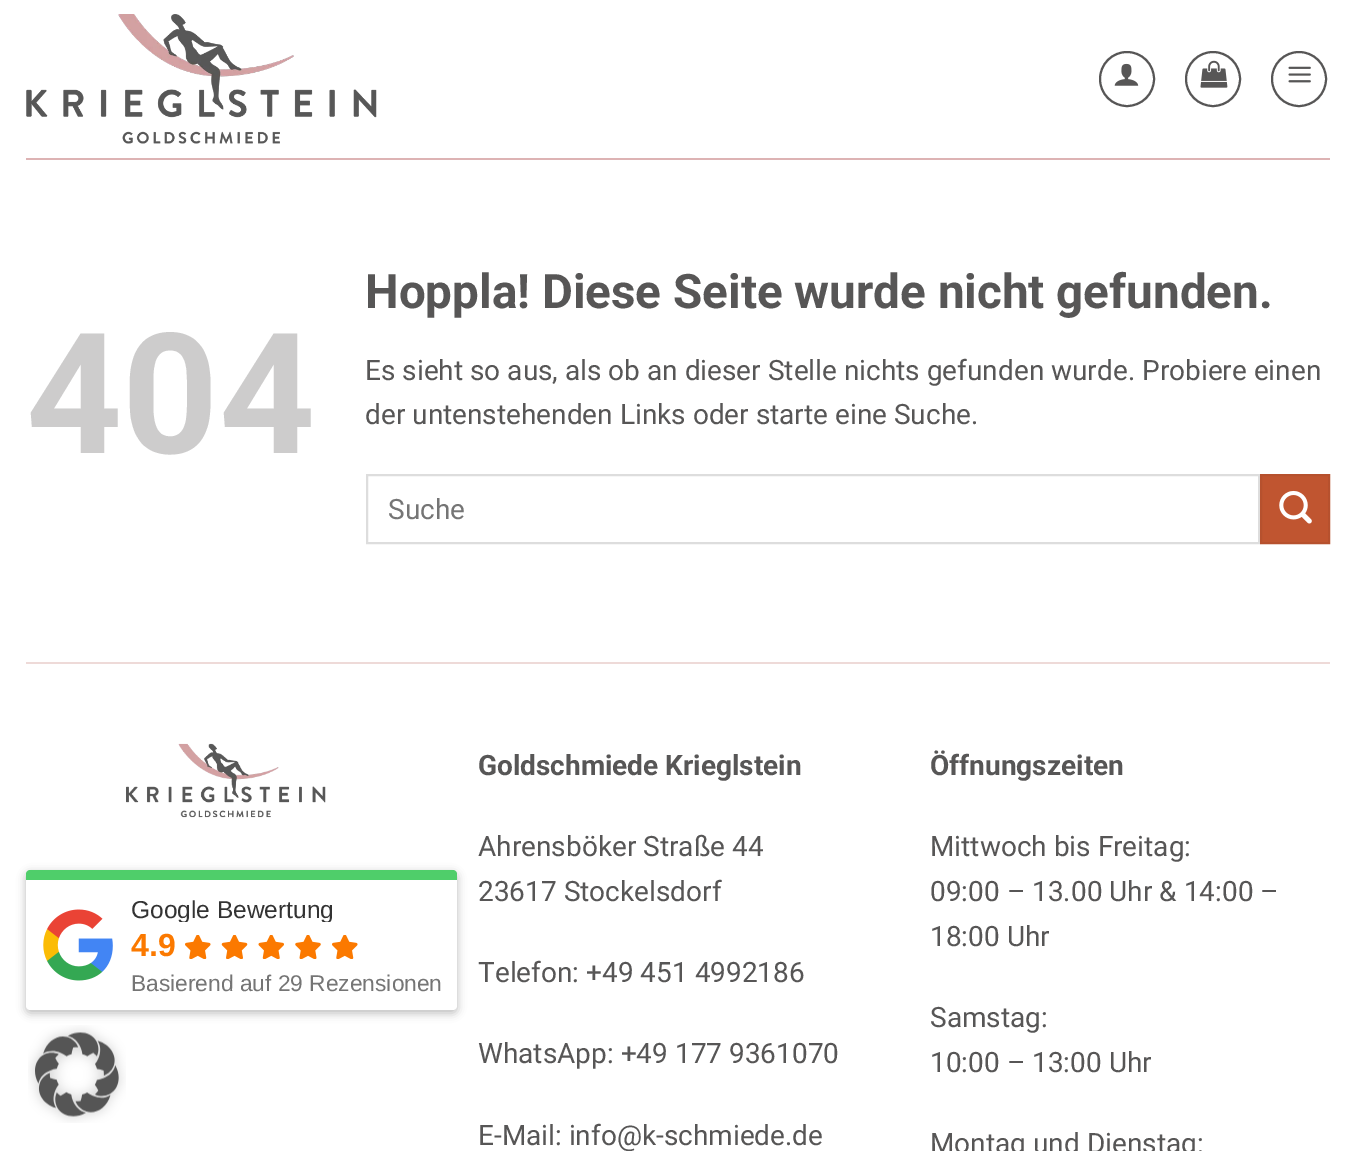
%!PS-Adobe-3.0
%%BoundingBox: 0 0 1356 1151
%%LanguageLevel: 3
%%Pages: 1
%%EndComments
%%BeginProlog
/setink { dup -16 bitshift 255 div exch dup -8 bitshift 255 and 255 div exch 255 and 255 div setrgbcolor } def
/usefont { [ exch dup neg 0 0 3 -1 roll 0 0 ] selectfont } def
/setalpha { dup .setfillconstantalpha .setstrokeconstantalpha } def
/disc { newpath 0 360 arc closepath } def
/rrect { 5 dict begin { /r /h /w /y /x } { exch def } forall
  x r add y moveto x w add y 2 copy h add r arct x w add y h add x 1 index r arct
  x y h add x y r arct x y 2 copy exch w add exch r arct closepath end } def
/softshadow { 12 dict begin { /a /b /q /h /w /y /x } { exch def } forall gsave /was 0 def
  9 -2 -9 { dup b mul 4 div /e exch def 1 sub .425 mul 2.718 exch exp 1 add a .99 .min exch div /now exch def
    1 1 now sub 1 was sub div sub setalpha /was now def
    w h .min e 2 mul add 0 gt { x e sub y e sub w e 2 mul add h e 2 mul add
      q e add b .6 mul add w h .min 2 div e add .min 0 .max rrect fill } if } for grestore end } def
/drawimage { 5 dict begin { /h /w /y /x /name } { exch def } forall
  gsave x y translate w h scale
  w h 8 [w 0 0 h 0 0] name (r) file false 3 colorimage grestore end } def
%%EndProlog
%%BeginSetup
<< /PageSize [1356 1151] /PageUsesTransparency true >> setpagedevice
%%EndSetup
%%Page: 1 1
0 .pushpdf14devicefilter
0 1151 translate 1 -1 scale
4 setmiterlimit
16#FFFFFF setink
0 0 1356 1151 rectfill
(img1.raw) 26 14 351 130 drawimage
16#575656 setink
2 setlinewidth
1127 79 27 disc stroke
(img2.raw) 1114 63 25 23 drawimage
1213 79 27 disc stroke
(img3.raw) 1200 60 28 28 drawimage
1299 79 27 disc stroke
(img4.raw) 1288 66 23 17 drawimage
16#DDB3B4 setink
26 158 1304 2 rectfill
/Roboto-Bold 168 usefont
16#CDCCCC setink
26 453 moveto (404) show
/Roboto-Bold 47.6 usefont
16#575656 setink
365 308 moveto (Hoppla! Diese Seite wurde nicht gefunden.) show
/Roboto-Regular 28 usefont
365 380 moveto (Es sieht so aus, als ob an dieser Stelle nichts gefunden wurde. Probiere einen) show
365 424 moveto (der untenstehenden Links oder starte eine Suche.) show
16#DDDDDD setink
367 475 892 68 rectstroke
16#757575 setink
388 519 moveto (Suche) show
16#C05530 setink
1261 475 moveto 1329 475 lineto 1329 543 lineto 1261 543 lineto closepath gsave fill grestore
16#B6512E setink
stroke
(img5.raw) 1279 490 33 34 drawimage
16#EEDAD8 setink
26 662 1304 2 rectfill
(img6.raw) 126 743 200 75 drawimage
16#000000 setink
26 873 431 140 4 4.5 0.26 softshadow
16#4FCE6A setink
30 870 moveto 453 870 lineto 455 870 457 872 457 874 curveto 457 880 lineto 26 880 lineto 26 874 lineto 26 872 28 870 30 870 curveto closepath fill
16#FFFFFF setink
26 880 moveto 457 880 lineto 457 1006 lineto 457 1008 455 1010 453 1010 curveto 30 1010 lineto 28 1010 26 1008 26 1006 curveto closepath fill
(img7.raw) 43 909 70 72 drawimage
gsave
131 894 312 28 rectclip
/LiberationSans-Regular 24.5 usefont
16#333333 setink
131 918 moveto (Google Bewertung) show
grestore
/LiberationSans-Bold 32 usefont
16#FB7900 setink
131 956 moveto (4.9) show
(img8.raw) 185 935 26 24 drawimage
(img9.raw) 221 935 27 24 drawimage
(img10.raw) 258 935 26 24 drawimage
(img11.raw) 295 935 26 24 drawimage
(img8.raw) 332 935 26 24 drawimage
/LiberationSans-Regular 22.75 usefont
16#757575 setink
131 991 moveto (Basierend auf 29 Rezensionen) show
/Roboto-Bold 28 usefont
16#575656 setink
478 775 moveto (Goldschmiede Krieglstein) show
/Roboto-Regular 28 usefont
[
    [(Ahrensböker Straße 44) 478 856]
    [(23617 Stockelsdorf) 478 901]
    [(Telefon: +49 451 4992186) 478 982]
    [(WhatsApp: +49 177 9361070) 478 1063]
    [(E-Mail: info@k-schmiede.de) 478 1145]
] { aload pop moveto show } forall
/Roboto-Bold 28 usefont
930 775 moveto (Öffnungszeiten) show
/Roboto-Regular 28 usefont
[
    [(Mittwoch bis Freitag:) 930 856]
    [(09:00 – 13.00 Uhr & 14:00 –) 930 901]
    [(18:00 Uhr) 930 946]
    [(Samstag:) 930 1027]
    [(10:00 – 13:00 Uhr) 930 1072]
    [(Montag und Dienstag:) 930 1153]
] { aload pop moveto show } forall
(img12.raw) 28 1025 98 98 drawimage
.poppdf14devicefilter showpage
%%EOF
